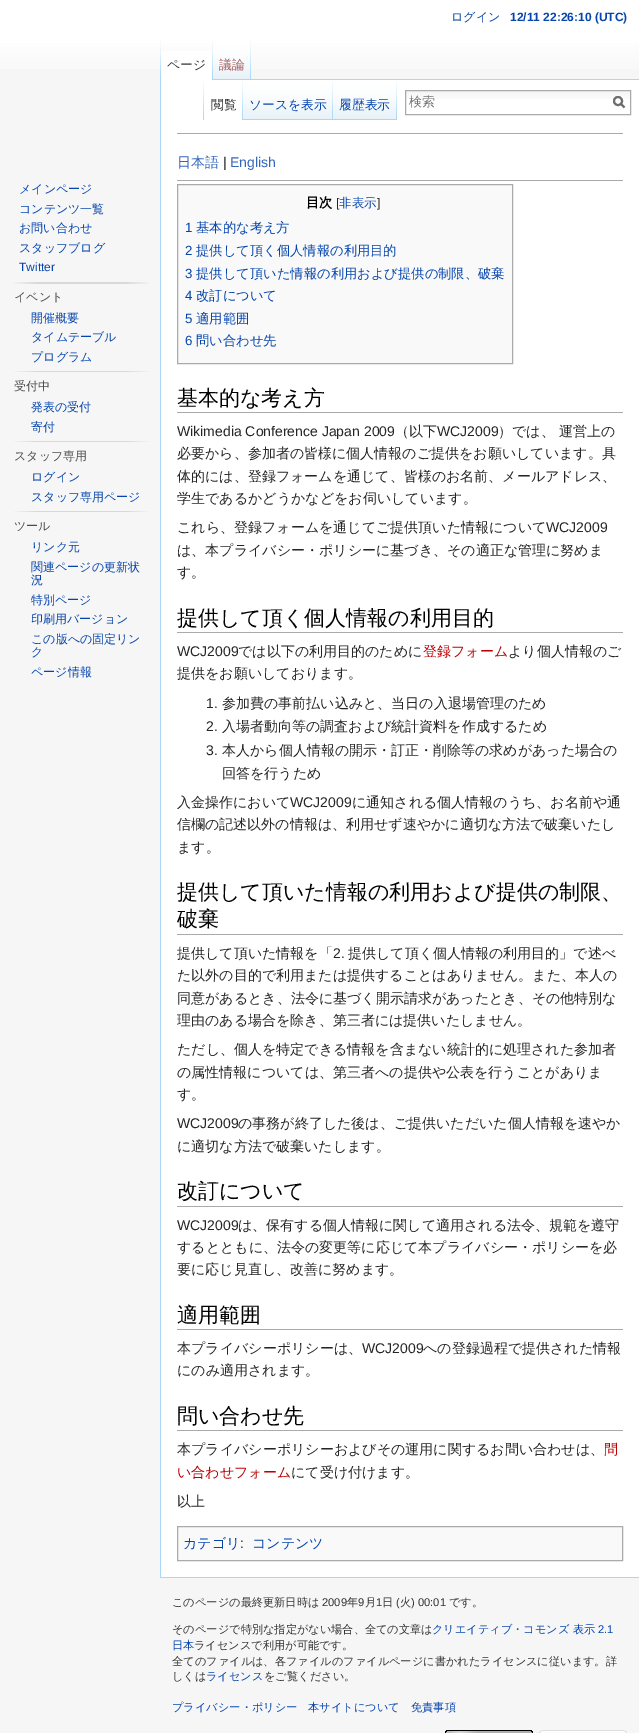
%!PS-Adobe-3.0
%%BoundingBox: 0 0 639 1733
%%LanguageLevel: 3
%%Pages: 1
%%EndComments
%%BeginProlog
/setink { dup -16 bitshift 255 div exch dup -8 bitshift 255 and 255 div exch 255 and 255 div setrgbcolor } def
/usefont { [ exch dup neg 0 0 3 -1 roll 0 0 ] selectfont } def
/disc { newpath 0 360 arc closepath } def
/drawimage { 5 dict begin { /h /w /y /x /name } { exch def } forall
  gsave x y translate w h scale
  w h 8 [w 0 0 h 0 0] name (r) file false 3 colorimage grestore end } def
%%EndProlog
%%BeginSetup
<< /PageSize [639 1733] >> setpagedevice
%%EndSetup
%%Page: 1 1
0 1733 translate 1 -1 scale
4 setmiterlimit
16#F6F6F6 setink
0 0 639 1733 rectfill
gsave 0 0 moveto 639 0 lineto 639 69 lineto 0 69 lineto closepath clip newpath
<< /ShadingType 2 /ColorSpace /DeviceRGB /Coords [320 0 320 80] /Extend [true true] /Function << /FunctionType 3 /Domain [0 1] /Functions [<< /FunctionType 2 /Domain [0 1] /C0 [1 1 1] /C1 [1 1 1] /N 1 >> << /FunctionType 2 /Domain [0 1] /C0 [1 1 1] /C1 [0.965 0.965 0.965] /N 1 >>] /Bounds [0.5] /Encode [0 1 0 1] >> >> shfill grestore
/WenQuanYiZenHei-Medium 12 usefont
16#0645AD setink
451 21 moveto (ログイン) show
/LiberationSans-Bold 12 usefont
510 21 moveto (12/11 22:26:10 \(UTC\)) show
(img1.raw) 160 40 1 39 drawimage
16#FFFFFF setink
161 51 51 29 rectfill
(img2.raw) 212 40 1 40 drawimage
/WenQuanYiZenHei-Medium 12.75 usefont
16#333333 setink
167 69 moveto (ページ) show
(img3.raw) 213 40 38 40 drawimage
(img4.raw) 250 40 1 39 drawimage
16#A55858 setink
219 69 moveto (議論) show
16#FFFFFF setink
161 80 478 1497 rectfill
(img5.raw) 203 80 1 40 drawimage
(img2.raw) 242 80 1 40 drawimage
16#333333 setink
211 109 moveto (閲覧) show
(img6.raw) 243 80 90 40 drawimage
(img4.raw) 332 80 1 39 drawimage
16#0645AD setink
249 109 moveto (ソースを表示) show
(img7.raw) 333 80 64 40 drawimage
(img4.raw) 396 80 1 39 drawimage
339 109 moveto (履歴表示) show
(img8.raw) 406 91 224 8 drawimage
16#AAAAAA setink
405.5 90.5 225 24 rectstroke
/WenQuanYiZenHei-Medium 13 usefont
16#757575 setink
409 106 moveto (検索) show
16#6C6C6C setink
2 setlinewidth
624.5 107.5 moveto 620.5 103.5 lineto stroke
618 101 4 disc stroke
/WenQuanYiZenHei-Medium 12 usefont
16#0645AD setink
[
    [(メインページ) 19 193]
    [(コンテンツ一覧) 19 213]
    [(お問い合わせ) 19 232]
    [(スタッフブログ) 19 252]
] { aload pop moveto show } forall
/LiberationSans-Regular 12 usefont
19 271 moveto (Twitter) show
(img9.raw) 14 282 135 2 drawimage
/WenQuanYiZenHei-Medium 12 usefont
16#4D4D4D setink
14 301 moveto (イベント) show
16#0645AD setink
[
    [(開催概要) 31 322]
    [(タイムテーブル) 31 341]
    [(プログラム) 31 361]
] { aload pop moveto show } forall
(img10.raw) 14 371 135 1 drawimage
16#4D4D4D setink
14 390 moveto (受付中) show
16#0645AD setink
31 411 moveto (発表の受付) show
31 431 moveto (寄付) show
(img10.raw) 14 441 135 1 drawimage
16#4D4D4D setink
14 460 moveto (スタッフ専用) show
16#0645AD setink
31 481 moveto (ログイン) show
31 501 moveto (スタッフ専用ページ) show
(img10.raw) 14 511 135 1 drawimage
16#4D4D4D setink
14 530 moveto (ツール) show
16#0645AD setink
[
    [(リンク元) 31 551]
    [(関連ページの更新状) 31 571]
    [(況) 31 584]
    [(特別ページ) 31 604]
    [(印刷用バージョン) 31 623]
    [(この版への固定リン) 31 643]
    [(ク) 31 656]
    [(ページ情報) 31 676]
] { aload pop moveto show } forall
[
    [251 79 388 1 16#A7D7F9]
    [160 1577 479 1 16#A7D7F9]
    [160 79 1 1499 16#A7D7F9]
    [177 133 446 1 16#AAAAAA]
] { aload pop setink rectfill } forall
/WenQuanYiZenHei-Medium 14 usefont
16#3366BB setink
177 167 moveto (日本語) show
/LiberationSans-Regular 14 usefont
16#252525 setink
223 167 moveto (|) show
16#3366BB setink
230 167 moveto (English) show
16#AAAAAA setink
177 180 446 1 rectfill
16#F9F9F9 setink
177.5 184.5 moveto 512.5 184.5 lineto 512.5 363.5 lineto 177.5 363.5 lineto closepath gsave fill grestore
16#AAAAAA setink
1 setlinewidth
stroke
/WenQuanYiZenHei-Bold 13.3 usefont
16#000000 setink
306 207 moveto (目次) show
/LiberationSans-Regular 12.5 usefont
16#252525 setink
336 207 moveto ([) show
/WenQuanYiZenHei-Medium 12.5 usefont
16#0645AD setink
339 207 moveto (非表示) show
/LiberationSans-Regular 12.5 usefont
16#252525 setink
377 207 moveto (]) show
/LiberationSans-Regular 13.3 usefont
16#0645AD setink
185 232 moveto (1) show
/WenQuanYiZenHei-Medium 13.3 usefont
196 232 moveto (基本的な考え方) show
/LiberationSans-Regular 13.3 usefont
185 255 moveto (2) show
/WenQuanYiZenHei-Medium 13.3 usefont
196 255 moveto (提供して頂く個人情報の利用目的) show
/LiberationSans-Regular 13.3 usefont
185 278 moveto (3) show
/WenQuanYiZenHei-Medium 13.3 usefont
196 278 moveto (提供して頂いた情報の利用および提供の制限、破棄) show
/LiberationSans-Regular 13.3 usefont
185 300 moveto (4) show
/WenQuanYiZenHei-Medium 13.3 usefont
196 300 moveto (改訂について) show
/LiberationSans-Regular 13.3 usefont
185 323 moveto (5) show
/WenQuanYiZenHei-Medium 13.3 usefont
196 323 moveto (適用範囲) show
/LiberationSans-Regular 13.3 usefont
185 345 moveto (6) show
/WenQuanYiZenHei-Medium 13.3 usefont
196 345 moveto (問い合わせ先) show
16#AAAAAA setink
177 412 446 1 rectfill
/WenQuanYiZenHei-Medium 21 usefont
16#000000 setink
177 405 moveto (基本的な考え方) show
/LiberationSans-Regular 14 usefont
16#252525 setink
177 436 moveto (Wikimedia Conference Japan 2009) show
/WenQuanYiZenHei-Medium 14 usefont
395 436 moveto (（以下) show
/LiberationSans-Regular 14 usefont
437 436 moveto (WCJ2009) show
/WenQuanYiZenHei-Medium 14 usefont
[
    [(）では、) 498 436]
    [(運営上の) 559 436]
    [(必要から、参加者の皆様に個人情報のご提供をお願いしています。具) 177 458]
    [(体的には、登録フォームを通じて、皆様のお名前、メールアドレス、) 177 481]
    [(学生であるかどうかなどをお伺いしています。) 177 503]
    [(これら、登録フォームを通じてご提供頂いた情報について) 177 532]
] { aload pop moveto show } forall
/LiberationSans-Regular 14 usefont
546 532 moveto (WCJ2009) show
/WenQuanYiZenHei-Medium 14 usefont
177 555 moveto (は、本プライバシー・ポリシーに基づき、その適正な管理に努めま) show
177 577 moveto (す。) show
16#AAAAAA setink
177 632 446 1 rectfill
/WenQuanYiZenHei-Medium 21 usefont
16#000000 setink
177 625 moveto (提供して頂く個人情報の利用目的) show
/LiberationSans-Regular 14 usefont
16#252525 setink
177 656 moveto (WCJ2009) show
/WenQuanYiZenHei-Medium 14 usefont
238 656 moveto (では以下の利用目的のために) show
16#BA0000 setink
423 656 moveto (登録フォーム) show
16#252525 setink
508 656 moveto (より個人情報のご) show
177 678 moveto (提供をお願いしております。) show
/LiberationSans-Regular 14 usefont
206 708 moveto (1.) show
/WenQuanYiZenHei-Medium 14 usefont
222 708 moveto (参加費の事前払い込みと、当日の入退場管理のため) show
/LiberationSans-Regular 14 usefont
206 731 moveto (2.) show
/WenQuanYiZenHei-Medium 14 usefont
222 731 moveto (入場者動向等の調査および統計資料を作成するため) show
/LiberationSans-Regular 14 usefont
206 755 moveto (3.) show
/WenQuanYiZenHei-Medium 14 usefont
[
    [(本人から個人情報の開示・訂正・削除等の求めがあった場合の) 222 755]
    [(回答を行うため) 222 778]
    [(入金操作において) 177 807]
] { aload pop moveto show } forall
/LiberationSans-Regular 14 usefont
290 807 moveto (WCJ2009) show
/WenQuanYiZenHei-Medium 14 usefont
[
    [(に通知される個人情報のうち、お名前や通) 352 807]
    [(信欄の記述以外の情報は、利用せず速やかに適切な方法で破棄いたし) 177 829]
    [(ます。) 177 852]
] { aload pop moveto show } forall
16#AAAAAA setink
177 934 446 1 rectfill
/WenQuanYiZenHei-Medium 21 usefont
16#000000 setink
177 899 moveto (提供して頂いた情報の利用および提供の制限、) show
177 926 moveto (破棄) show
/WenQuanYiZenHei-Medium 14 usefont
16#252525 setink
177 958 moveto (提供して頂いた情報を「) show
/LiberationSans-Regular 14 usefont
333 958 moveto (2.) show
/WenQuanYiZenHei-Medium 14 usefont
[
    [(提供して頂く個人情報の利用目的」で述べ) 348 958]
    [(た以外の目的で利用または提供することはありません。また、本人の) 177 980]
    [(同意があるとき、法令に基づく開示請求があったとき、その他特別な) 177 1003]
    [(理由のある場合を除き、第三者には提供いたしません。) 177 1025]
    [(ただし、個人を特定できる情報を含まない統計的に処理された参加者) 177 1054]
    [(の属性情報については、第三者への提供や公表を行うことがありま) 177 1077]
    [(す。) 177 1099]
] { aload pop moveto show } forall
/LiberationSans-Regular 14 usefont
177 1128 moveto (WCJ2009) show
/WenQuanYiZenHei-Medium 14 usefont
238 1128 moveto (の事務が終了した後は、ご提供いただいた個人情報を速やか) show
177 1151 moveto (に適切な方法で破棄いたします。) show
16#AAAAAA setink
177 1206 446 1 rectfill
/WenQuanYiZenHei-Medium 21 usefont
16#000000 setink
177 1198 moveto (改訂について) show
/LiberationSans-Regular 14 usefont
16#252525 setink
177 1230 moveto (WCJ2009) show
/WenQuanYiZenHei-Medium 14 usefont
[
    [(は、保有する個人情報に関して適用される法令、規範を遵守) 238 1230]
    [(するとともに、法令の変更等に応じて本プライバシー・ポリシーを必) 177 1252]
    [(要に応じ見直し、改善に努めます。) 177 1274]
] { aload pop moveto show } forall
16#AAAAAA setink
177 1329 446 1 rectfill
/WenQuanYiZenHei-Medium 21 usefont
16#000000 setink
177 1322 moveto (適用範囲) show
/WenQuanYiZenHei-Medium 14 usefont
16#252525 setink
177 1353 moveto (本プライバシーポリシーは、) show
/LiberationSans-Regular 14 usefont
362 1353 moveto (WCJ2009) show
/WenQuanYiZenHei-Medium 14 usefont
423 1353 moveto (への登録過程で提供された情報) show
177 1375 moveto (にのみ適用されます。) show
16#AAAAAA setink
177 1430 446 1 rectfill
/WenQuanYiZenHei-Medium 21 usefont
16#000000 setink
177 1423 moveto (問い合わせ先) show
/WenQuanYiZenHei-Medium 14 usefont
16#252525 setink
177 1454 moveto (本プライバシーポリシーおよびその運用に関するお問い合わせは、) show
16#BA0000 setink
604 1454 moveto (問) show
177 1477 moveto (い合わせフォーム) show
16#252525 setink
291 1477 moveto (にて受け付けます。) show
177 1506 moveto (以上) show
16#F9F9F9 setink
177.5 1526.5 moveto 622.5 1526.5 lineto 622.5 1560.5 lineto 177.5 1560.5 lineto closepath gsave fill grestore
16#AAAAAA setink
stroke
16#0645AD setink
183 1548 moveto (カテゴリ) show
/LiberationSans-Regular 14 usefont
16#252525 setink
240 1548 moveto (:) show
/WenQuanYiZenHei-Medium 14 usefont
16#0645AD setink
252 1548 moveto (コンテンツ) show
/WenQuanYiZenHei-Medium 11.2 usefont
16#333333 setink
172 1606 moveto (このページの最終更新日時は) show
/LiberationSans-Regular 11.2 usefont
322 1606 moveto (2009) show
/WenQuanYiZenHei-Medium 11.2 usefont
347 1606 moveto (年) show
/LiberationSans-Regular 11.2 usefont
358 1606 moveto (9) show
/WenQuanYiZenHei-Medium 11.2 usefont
365 1606 moveto (月) show
/LiberationSans-Regular 11.2 usefont
376 1606 moveto (1) show
/WenQuanYiZenHei-Medium 11.2 usefont
382 1606 moveto (日) show
/LiberationSans-Regular 11.2 usefont
396 1606 moveto (\() show
/WenQuanYiZenHei-Medium 11.2 usefont
400 1606 moveto (火) show
/LiberationSans-Regular 11.2 usefont
411 1606 moveto (\) 00:01) show
/WenQuanYiZenHei-Medium 11.2 usefont
449 1606 moveto (です。) show
172 1633 moveto (そのページで特別な指定がない場合、全ての文章は) show
16#0645AD setink
432 1633 moveto (クリエイティブ・コモンズ 表示) show
/LiberationSans-Regular 11.2 usefont
598 1633 moveto (2.1) show
/WenQuanYiZenHei-Medium 11.2 usefont
172 1649 moveto (日本) show
16#333333 setink
[
    [(ライセンスで利用が可能です。) 194 1649]
    [(全てのファイルは、各ファイルのファイルページに書かれたライセンスに従います。詳) 172 1665]
    [(しくは) 172 1680]
] { aload pop moveto show } forall
16#0645AD setink
206 1680 moveto (ライセンス) show
16#333333 setink
264 1680 moveto (をご覧ください。) show
16#0645AD setink
[
    [(プライバシー・ポリシー) 172 1711]
    [(本サイトについて) 308 1711]
    [(免責事項) 411 1711]
] { aload pop moveto show } forall
(img11.raw) 445 1730 88 3 drawimage
(img12.raw) 539 1730 88 3 drawimage
showpage
%%EOF
